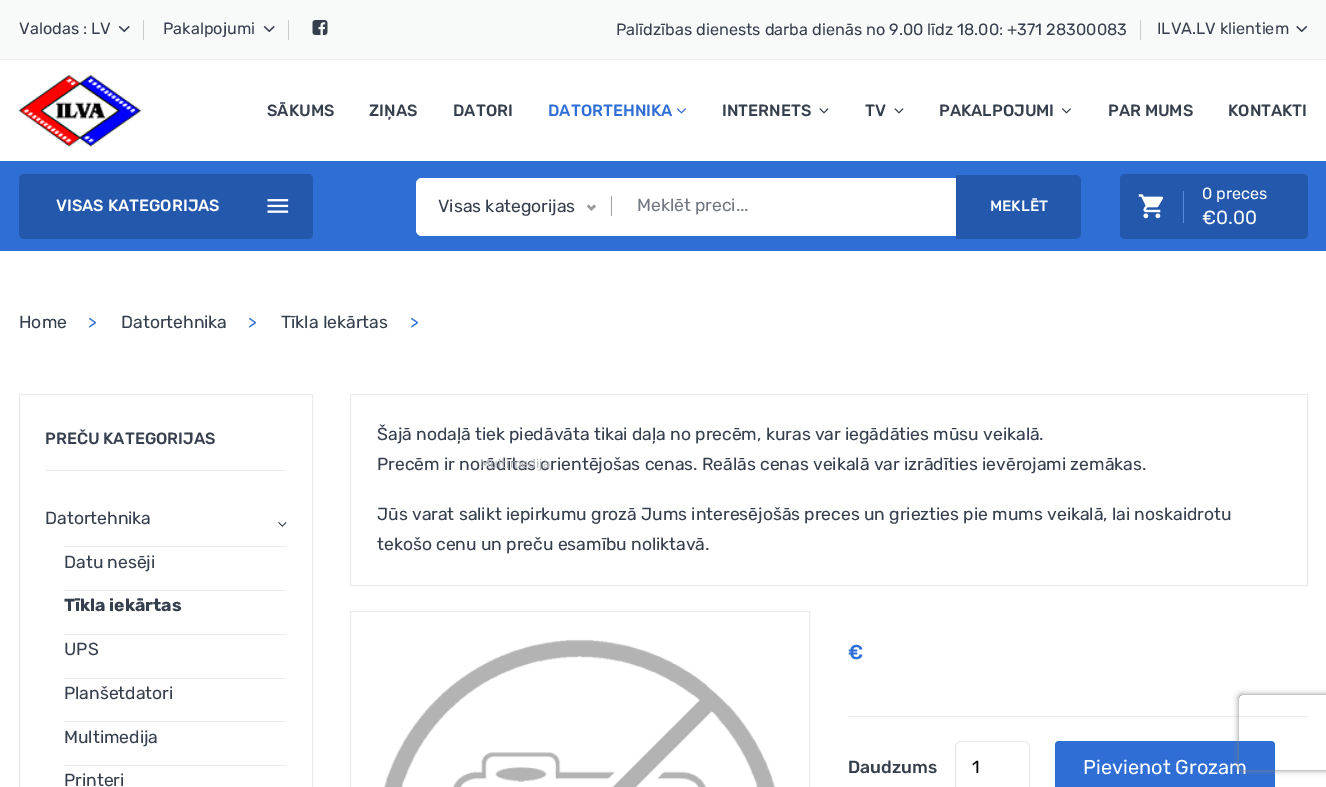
%!PS-Adobe-3.0
%%BoundingBox: 0 0 1326 787
%%LanguageLevel: 3
%%Pages: 1
%%EndComments
%%BeginProlog
/setink { dup -16 bitshift 255 div exch dup -8 bitshift 255 and 255 div exch 255 and 255 div setrgbcolor } def
/usefont { [ exch dup neg 0 0 3 -1 roll 0 0 ] selectfont } def
/setalpha { dup .setfillconstantalpha .setstrokeconstantalpha } def
/rrect { 5 dict begin { /r /h /w /y /x } { exch def } forall
  x r add y moveto x w add y 2 copy h add r arct x w add y h add x 1 index r arct
  x y h add x y r arct x y 2 copy exch w add exch r arct closepath end } def
/softshadow { 12 dict begin { /a /b /q /h /w /y /x } { exch def } forall gsave /was 0 def
  9 -2 -9 { dup b mul 4 div /e exch def 1 sub .425 mul 2.718 exch exp 1 add a .99 .min exch div /now exch def
    1 1 now sub 1 was sub div sub setalpha /was now def
    w h .min e 2 mul add 0 gt { x e sub y e sub w e 2 mul add h e 2 mul add
      q e add b .6 mul add w h .min 2 div e add .min 0 .max rrect fill } if } for grestore end } def
/drawimage { 5 dict begin { /h /w /y /x /name } { exch def } forall
  gsave x y translate w h scale
  w h 8 [w 0 0 h 0 0] name (r) file false 3 colorimage grestore end } def
%%EndProlog
%%BeginSetup
<< /PageSize [1326 787] /PageUsesTransparency true >> setpagedevice
%%EndSetup
%%Page: 1 1
0 .pushpdf14devicefilter
0 787 translate 1 -1 scale
4 setmiterlimit
16#FFFFFF setink
0 0 1326 787 rectfill
16#F8F9F9 setink
0 0 1326 59 rectfill
16#EBEBEB setink
0 59 1326 1 rectfill
/Rubik-Regular 16.25 usefont
16#363F4D setink
19 34 moveto (Valodas : LV) show
(img1.raw) 118 26 12 7 drawimage
16#CCCCCC setink
143 20 1 20 rectfill
16#363F4D setink
163 34 moveto (Pakalpojumi) show
(img1.raw) 263 26 12 7 drawimage
16#CCCCCC setink
288 20 1 20 rectfill
(img2.raw) 312 20 16 15 drawimage
16#363F4D setink
616 35 moveto (Palīdzības dienests darba dienās no 9.00 līdz 18.00: +371 28300083) show
16#CCCCCC setink
1140 20 1 20 rectfill
16#363F4D setink
1157 34 moveto (ILVA.LV klientiem) show
(img3.raw) 1296 26 12 7 drawimage
(img4.raw) 18 75 124 72 drawimage
/Rubik-Medium 16.25 usefont
[
    [(SĀKUMS) 267 116]
    [(ZIŅAS) 369 116]
    [(DATORI) 453 116]
] { aload pop moveto show } forall
16#2E6ED5 setink
548 116 moveto (DATORTEHNIKA) show
(img5.raw) 677 108 9 6 drawimage
16#363F4D setink
722 116 moveto (INTERNETS) show
(img6.raw) 819 108 10 6 drawimage
865 116 moveto (TV) show
(img6.raw) 894 108 10 6 drawimage
939 116 moveto (PAKALPOJUMI) show
(img7.raw) 1062 108 9 6 drawimage
1108 116 moveto (PAR MUMS) show
1228 116 moveto (KONTAKTI) show
16#2E6ED5 setink
0 161 1326 90 rectfill
16#2358AD setink
19 174 294 65 5 rrect fill
16#FFFFFF setink
56 211 moveto (VISAS KATEGORIJAS) show
(img8.raw) 267 199 22 14 drawimage
416 178 663 58 6 rrect fill
/Rubik-Regular 17.5 usefont
16#363F4D setink
438 212 moveto (Visas kategorijas) show
16#999999 setink
594 204.5 moveto 596 206.5 lineto 591.5 210.5 lineto 589.5 209 lineto closepath fill
588.5 204.5 moveto 593 209 lineto 591.5 210.5 lineto 587 206.5 lineto closepath fill
16#EBEBEB setink
350.5 394.5 957 191 rectstroke
16#363F4D setink
377 470 moveto (Precēm ir norādītas orientējošas cenas. Reālās cenas veikalā var izrādīties ievērojami zemākas.) show
/Rubik-Regular 13 usefont
16#B2B6BB setink
480 468 moveto (Multimedija) show
16#A1A1A1 setink
611 196 1 20 rectfill
/Rubik-Regular 17.5 usefont
16#727982 setink
637 211 moveto (Meklēt preci...) show
16#2358AD setink
956 175 moveto 1075 175 lineto 1078.5 175 1081 177.5 1081 181 curveto 1081 233 lineto 1081 236.5 1078.5 239 1075 239 curveto 956 239 lineto closepath fill
/Rubik-Medium 15 usefont
16#FFFFFF setink
990 211 moveto (MEKLĒT) show
16#2358AD setink
1120 174 188 65 5 rrect fill
16#588BDE setink
1183 191 1 32 rectfill
(img9.raw) 1138 194 26 25 drawimage
/Rubik-Regular 16.25 usefont
16#FFFFFF setink
1202 199 moveto (0 preces) show
/Rubik-Regular 19 usefont
1202 224 moveto (€0.00) show
/Rubik-Regular 17.5 usefont
16#363F4D setink
19 328 moveto (Home) show
16#2E6ED5 setink
88 328 moveto (>) show
16#363F4D setink
121 328 moveto (Datortehnika) show
16#2E6ED5 setink
248 328 moveto (>) show
16#363F4D setink
281 328 moveto (Tīkla Iekārtas) show
16#2E6ED5 setink
410 328 moveto (>) show
16#EBEBEB setink
19.5 394.5 293 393 rectstroke
45 470 241 1 rectfill
/Rubik-Medium 16.25 usefont
16#363F4D setink
45 444 moveto (PREČU KATEGORIJAS) show
/Rubik-Regular 17.5 usefont
45 524 moveto (Datortehnika) show
(img10.raw) 278 522 9 5 drawimage
16#EBEBEB setink
64 546 222 1 rectfill
64 590 222 1 rectfill
16#363F4D setink
64 568 moveto (Datu nesēji) show
16#EBEBEB setink
64 634 222 1 rectfill
/Rubik-Bold 17.5 usefont
16#363F4D setink
64 611 moveto (Tīkla iekārtas) show
16#EBEBEB setink
64 678 222 1 rectfill
/Rubik-Regular 17.5 usefont
16#363F4D setink
64 655 moveto (UPS) show
16#EBEBEB setink
64 721 222 1 rectfill
16#363F4D setink
64 699 moveto (Planšetdatori) show
16#EBEBEB setink
64 765 222 1 rectfill
16#363F4D setink
[
    [(Multimedija) 64 743]
    [(Printeri) 64 786]
    [(Šajā nodaļā tiek piedāvāta tikai daļa no precēm, kuras var iegādāties mūsu veikalā.) 377 440]
    [(Jūs varat salikt iepirkumu grozā Jums interesējošās preces un griezties pie mums veikalā, lai noskaidrotu) 377 520]
    [(tekošo cenu un preču esamību noliktavā.) 377 550]
] { aload pop moveto show } forall
16#EBEBEB setink
350.5 611.5 459 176 rectstroke
(img11.raw) 384 639 392 148 drawimage
/Rubik-Medium 20 usefont
16#2E6ED5 setink
848 659 moveto (€) show
16#EBEBEB setink
848 716 460 1 rectfill
/Rubik-Medium 17.5 usefont
16#363F4D setink
848 773 moveto (Daudzums) show
16#EBEBEB setink
955.5 741.5 74 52 5.5 rrect stroke
/Rubik-Regular 17.5 usefont
16#000000 setink
972 773 moveto (1) show
16#2E6ED5 setink
1055 741 220 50 4 rrect fill
/Rubik-Regular 20 usefont
16#FFFFFF setink
1083 774 moveto (Pievienot Grozam) show
gsave
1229 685 moveto 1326 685 lineto 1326 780 lineto 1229 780 lineto closepath 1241.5 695 moveto 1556.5 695 lineto 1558 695 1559 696 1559 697.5 curveto 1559 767.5 lineto 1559 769 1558 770 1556.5 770 curveto 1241.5 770 lineto 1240 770 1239 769 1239 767.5 curveto 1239 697.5 lineto 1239 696 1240 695 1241.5 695 curveto closepath eoclip newpath
16#808080 setink
1239 695 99 75 2.5 3 1 softshadow
grestore
.poppdf14devicefilter showpage
%%EOF
